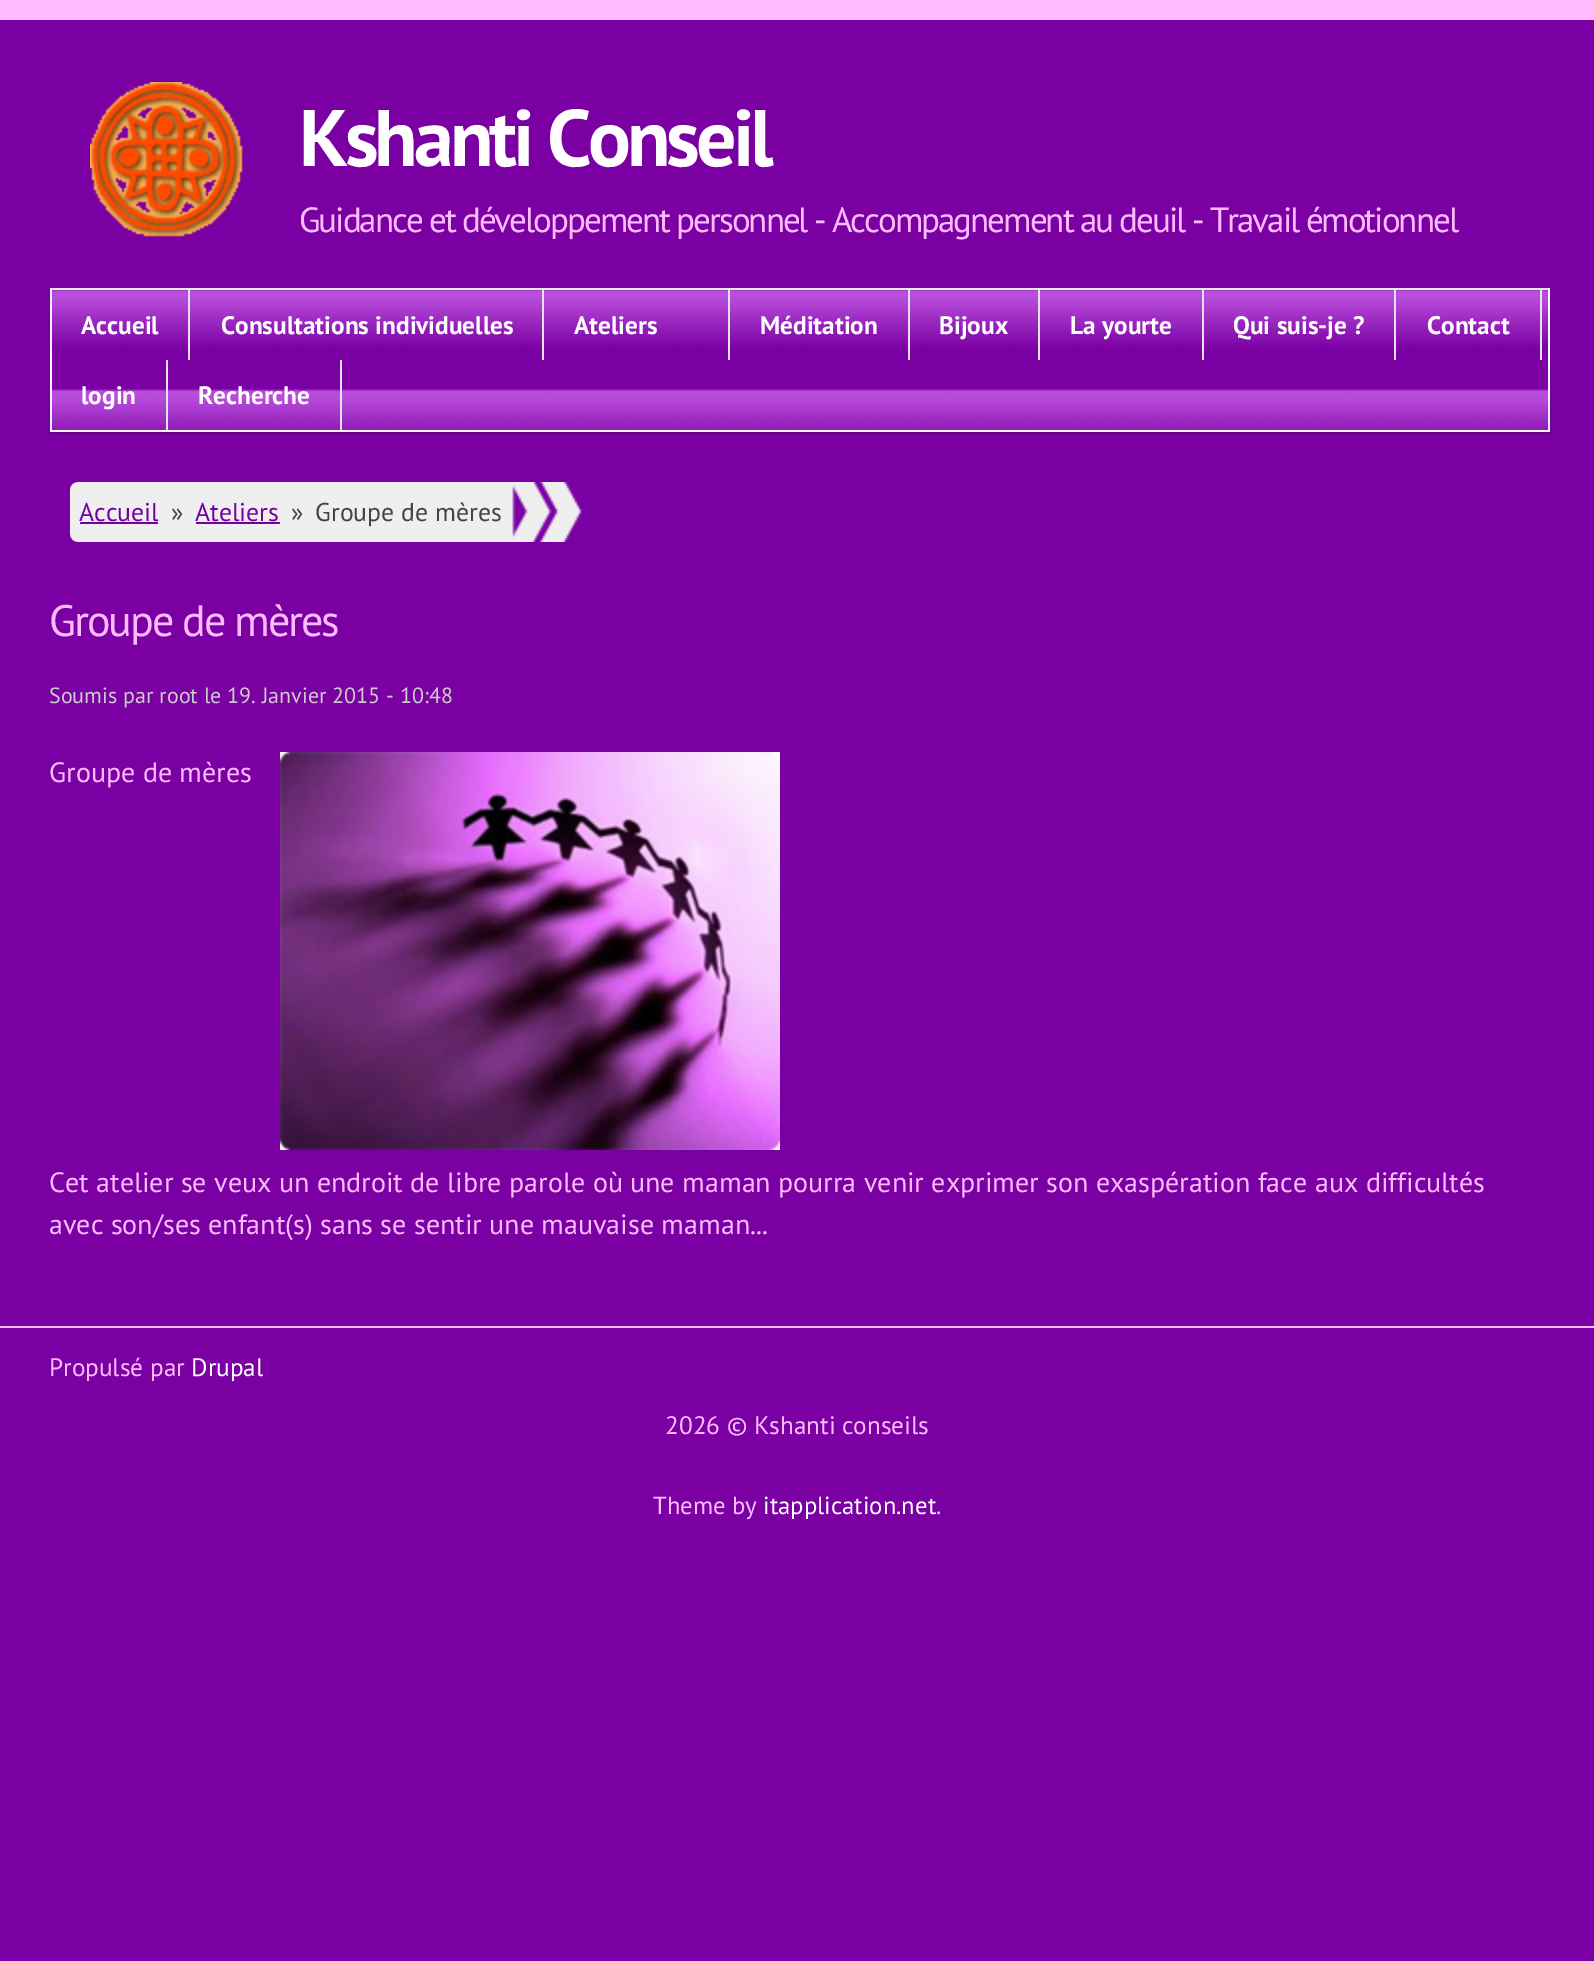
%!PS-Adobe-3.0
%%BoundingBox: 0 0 1594 1961
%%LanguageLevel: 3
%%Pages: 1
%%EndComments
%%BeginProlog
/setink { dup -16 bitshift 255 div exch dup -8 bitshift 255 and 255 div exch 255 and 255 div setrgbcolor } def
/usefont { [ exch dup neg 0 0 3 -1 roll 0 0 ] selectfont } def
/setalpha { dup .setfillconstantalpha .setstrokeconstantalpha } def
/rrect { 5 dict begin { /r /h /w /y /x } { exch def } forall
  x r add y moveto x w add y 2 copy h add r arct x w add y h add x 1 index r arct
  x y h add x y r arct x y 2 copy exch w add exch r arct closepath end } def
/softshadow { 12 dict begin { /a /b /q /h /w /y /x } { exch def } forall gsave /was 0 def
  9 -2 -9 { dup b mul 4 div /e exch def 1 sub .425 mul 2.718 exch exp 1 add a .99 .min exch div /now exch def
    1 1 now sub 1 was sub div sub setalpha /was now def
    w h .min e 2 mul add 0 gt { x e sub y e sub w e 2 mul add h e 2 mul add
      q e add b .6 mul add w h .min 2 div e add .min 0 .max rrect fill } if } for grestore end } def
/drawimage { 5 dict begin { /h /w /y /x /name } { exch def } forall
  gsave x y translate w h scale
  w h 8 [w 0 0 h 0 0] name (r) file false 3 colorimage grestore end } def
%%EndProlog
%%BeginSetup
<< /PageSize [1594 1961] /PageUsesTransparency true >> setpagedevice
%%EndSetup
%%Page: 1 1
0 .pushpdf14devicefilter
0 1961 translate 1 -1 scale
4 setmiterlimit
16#7A00A3 setink
0 0 1594 1961 rectfill
16#FFBBFF setink
0 0 1594 20 rectfill
(img1.raw) 90 82 153 155 drawimage
/PTSans-Bold 80 usefont
16#FFFFFF setink
299 166 moveto -4 0 (Kshanti Conseil) ashow
/PTSans-Regular 35 usefont
16#FFBBFF setink
299 232 moveto -2 0 (Guidance et développement personnel - Accompagnement au deuil - Travail émotionnel) ashow
gsave
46 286 moveto 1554 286 lineto 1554 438 lineto 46 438 lineto closepath 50 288 moveto 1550 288 lineto 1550 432 lineto 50 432 lineto closepath eoclip newpath
16#000000 setink
50 290 1500 144 0 1 0.2 softshadow
grestore
(img2.raw) 52 290 1496 140 drawimage
[
    [50 288 1500 2 16#EAEAEA]
    [1548 288 2 144 16#F5F5F5]
    [50 430 1500 2 16#F5F5F5]
    [50 288 2 144 16#F5F5F5]
    [188 290 2 70 16#E3E3E3]
] { aload pop setink rectfill } forall
/PTSans-Bold 25.25 usefont
16#FFFFFF setink
81 334 moveto (Accueil) show
16#E3E3E3 setink
542 290 2 70 rectfill
16#FFFFFF setink
221 334 moveto (Consultations individuelles) show
16#E3E3E3 setink
728 290 2 70 rectfill
16#FFFFFF setink
574 334 moveto (Ateliers) show
16#E3E3E3 setink
908 290 2 70 rectfill
16#FFFFFF setink
760 334 moveto (Méditation) show
16#E3E3E3 setink
1038 290 2 70 rectfill
16#FFFFFF setink
939 334 moveto (Bijoux) show
16#E3E3E3 setink
1202 290 2 70 rectfill
16#FFFFFF setink
1070 334 moveto (La yourte) show
16#E3E3E3 setink
1394 290 2 70 rectfill
16#FFFFFF setink
1233 334 moveto (Qui suis-je ?) show
16#E3E3E3 setink
1540 290 2 70 rectfill
16#FFFFFF setink
1427 334 moveto (Contact) show
16#E3E3E3 setink
166 360 2 70 rectfill
16#FFFFFF setink
81 404 moveto (login) show
16#E3E3E3 setink
340 360 2 70 rectfill
16#FFFFFF setink
198 404 moveto (Recherche) show
(img3.raw) 70 482 512 60 drawimage
/PTSans-Regular 25.75 usefont
16#7300A3 setink
79 521 moveto (Accueil) show
80 522 78 2 rectfill
16#444444 setink
171 521 moveto (») show
16#7300A3 setink
195 521 moveto (Ateliers) show
196 522 84 2 rectfill
16#444444 setink
291 521 moveto (») show
315 521 moveto (Groupe de mères) show
/PTSans-Regular 44 usefont
16#FFBBFF setink
49 636 moveto -2 0 (Groupe de mères) ashow
/PTSans-Regular 22 usefont
16#CCCCCC setink
49 703 moveto (Soumis par root le 19. Janvier 2015 - 10:48) show
/PTSans-Regular 28 usefont
16#FFBBFF setink
49 782 moveto (Groupe de mères) show
(img4.raw) 280 752 500 398 drawimage
49 1192 moveto (Cet atelier se veux un endroit de libre parole où une maman pourra venir exprimer son exaspération face aux difficultés) show
49 1234 moveto (avec son/ses enfant\(s\) sans se sentir une mauvaise maman...) show
0 1326 1594 2 rectfill
/PTSans-Regular 25.25 usefont
49 1376 moveto (Propulsé par) show
16#FFFFFF setink
191 1376 moveto (Drupal) show
16#FFBBFF setink
665 1434 moveto (2026 © Kshanti conseils) show
/PTSans-Regular 24.75 usefont
653 1514 moveto (Theme by) show
16#FFFFFF setink
763 1514 moveto (itapplication.net) show
16#FFBBFF setink
936 1514 moveto (.) show
.poppdf14devicefilter showpage
%%EOF
